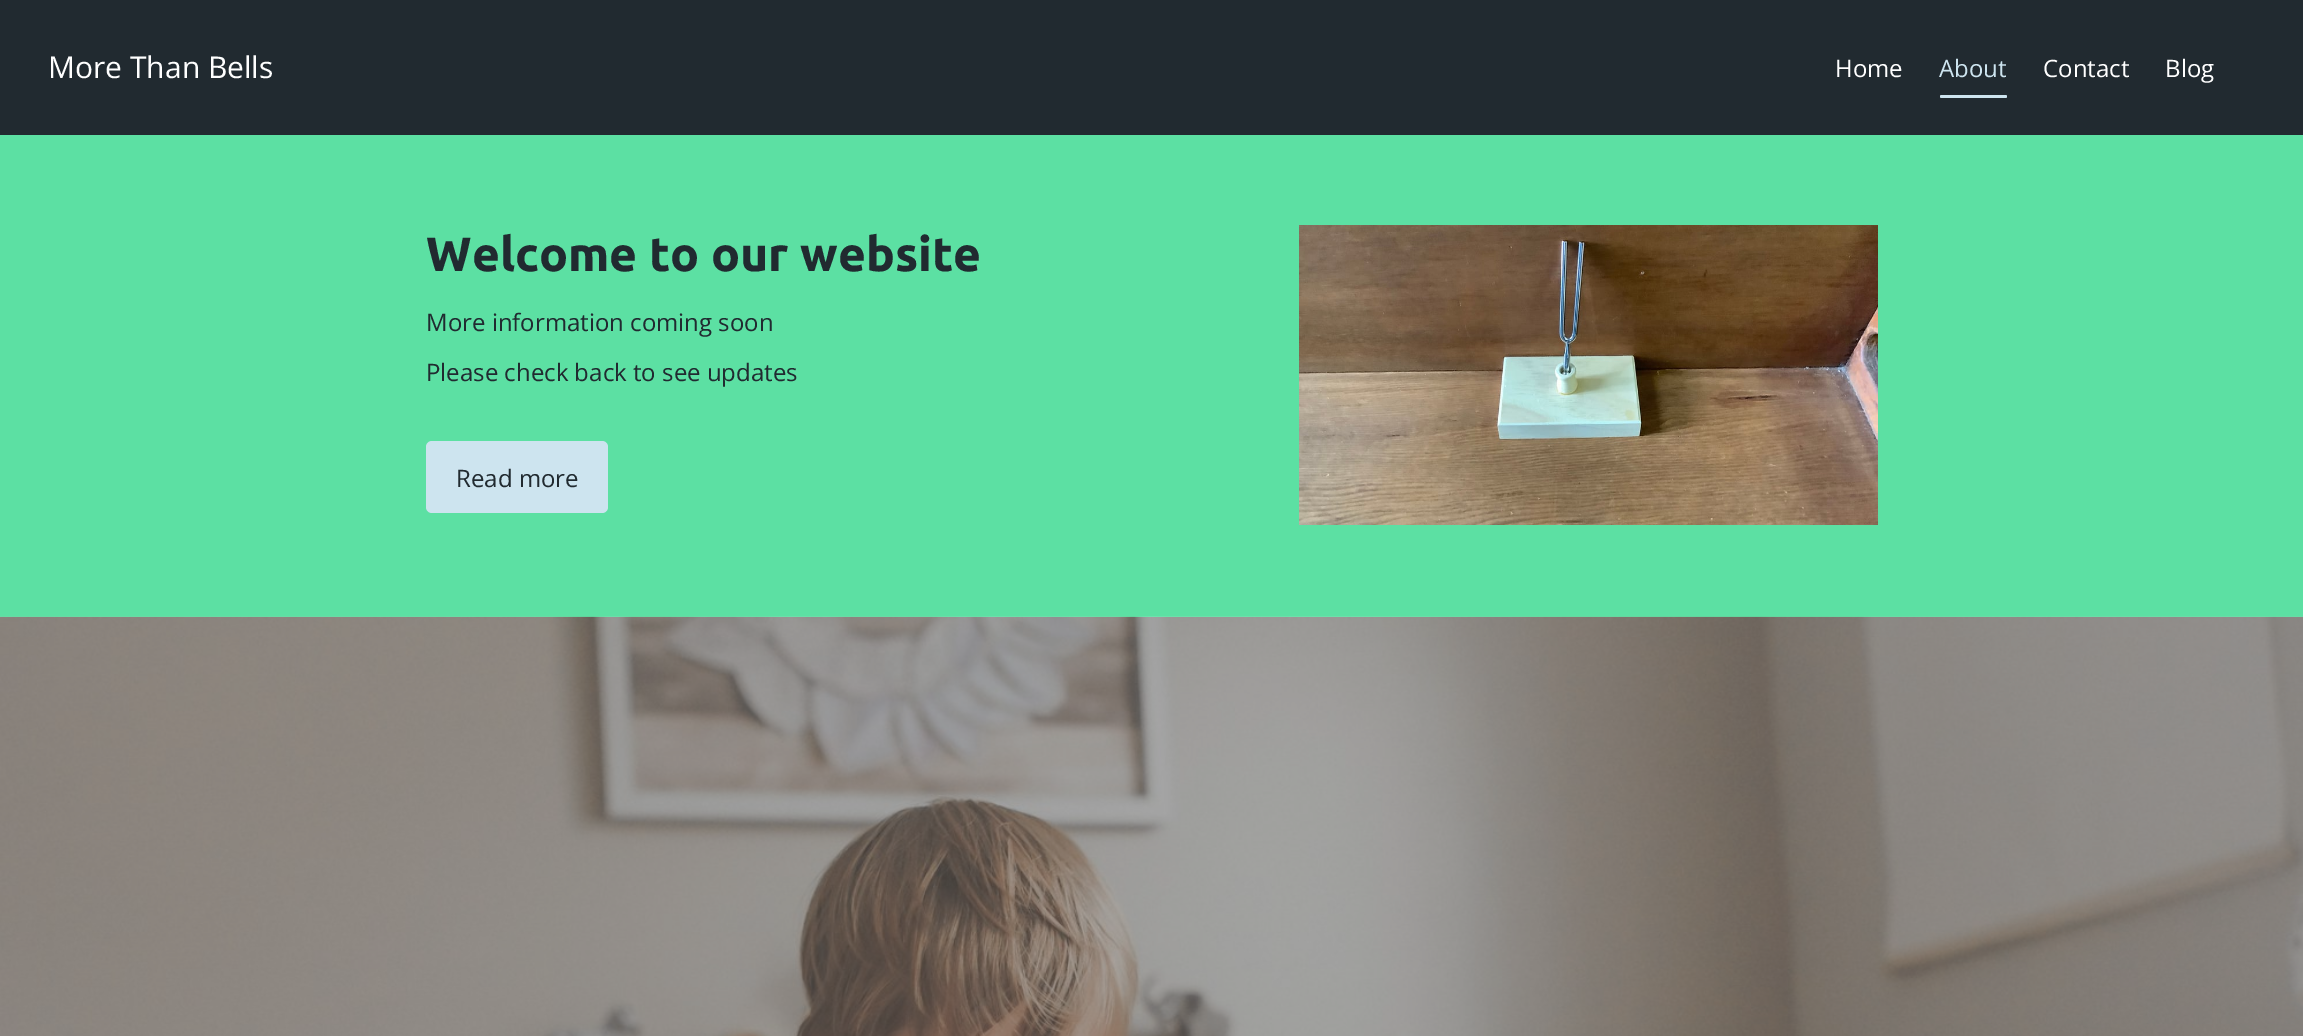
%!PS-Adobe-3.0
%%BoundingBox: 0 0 2303 1036
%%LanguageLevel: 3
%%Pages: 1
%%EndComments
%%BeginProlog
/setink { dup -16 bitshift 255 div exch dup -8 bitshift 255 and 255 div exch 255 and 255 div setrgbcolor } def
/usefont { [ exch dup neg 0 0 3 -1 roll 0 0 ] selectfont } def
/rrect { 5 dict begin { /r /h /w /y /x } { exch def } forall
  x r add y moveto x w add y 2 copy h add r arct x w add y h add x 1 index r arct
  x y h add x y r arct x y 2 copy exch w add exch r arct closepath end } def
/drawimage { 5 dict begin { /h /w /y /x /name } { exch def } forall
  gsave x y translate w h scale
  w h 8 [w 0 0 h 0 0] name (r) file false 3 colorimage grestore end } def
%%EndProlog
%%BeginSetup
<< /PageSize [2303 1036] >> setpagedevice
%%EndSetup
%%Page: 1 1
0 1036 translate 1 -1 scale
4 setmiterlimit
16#212A30 setink
0 0 2303 1036 rectfill
/OpenSans-Regular 30 usefont
16#FFFFFF setink
48 78 moveto (More Than Bells) show
/OpenSans-Regular 24 usefont
1835 77 moveto (Home) show
16#CDE4EF setink
1939 77 moveto (About) show
1940 95 67 3 1.5 rrect fill
16#FFFFFF setink
2043 77 moveto (Contact) show
2165 77 moveto (Blog) show
16#5CE0A3 setink
0 135 2303 482 rectfill
/Ubuntu-Bold 48 usefont
16#212A30 setink
426 271 moveto (Welcome to our website) show
/OpenSans-Regular 24 usefont
426 331 moveto (More information coming soon) show
426 381 moveto (Please check back to see updates) show
16#CDE4EF setink
426 441 182 72 6 rrect fill
16#212A30 setink
456 487 moveto (Read more) show
(img1.raw) 1299 225 579 300 drawimage
16#505050 setink
0 617 2303 419 rectfill
(img2.raw) 0 616 2303 420 drawimage
showpage
%%EOF
